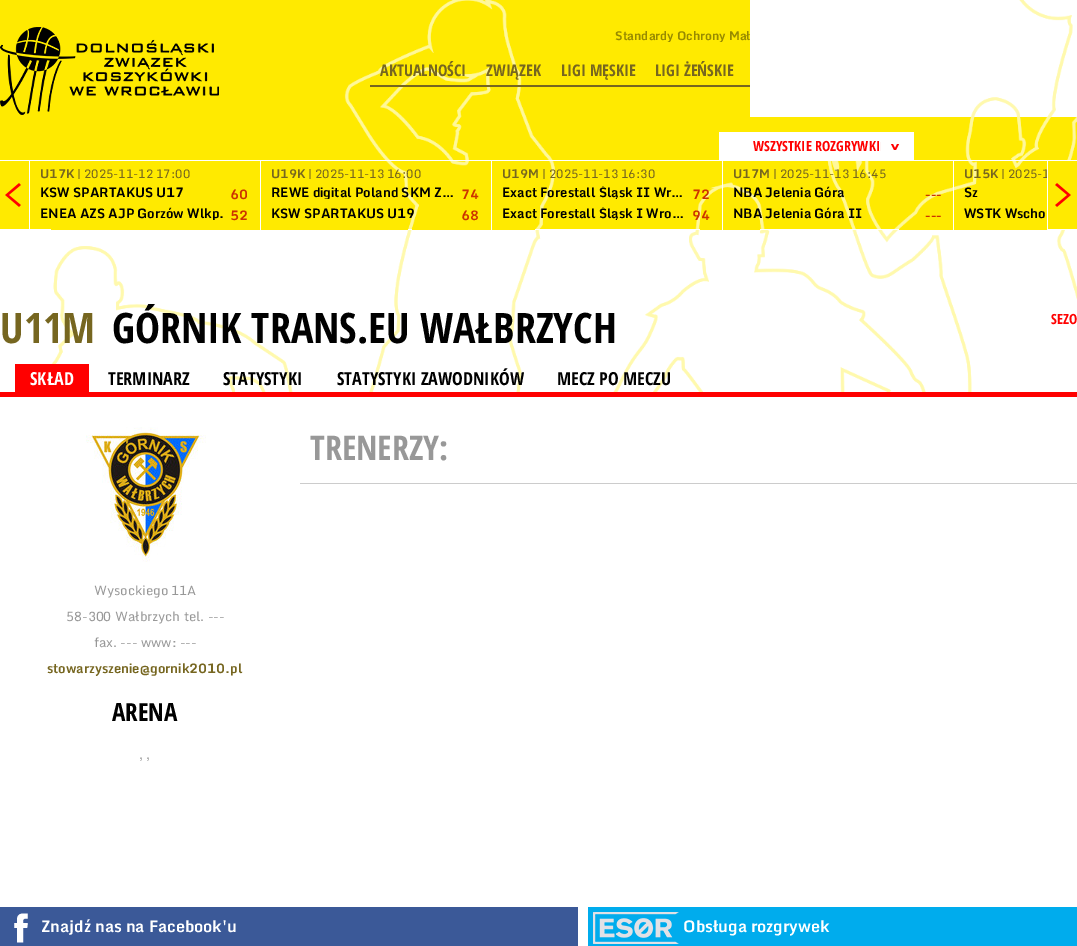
%!PS-Adobe-3.0
%%BoundingBox: 0 0 1077 946
%%LanguageLevel: 3
%%Pages: 1
%%EndComments
%%BeginProlog
/setink { dup -16 bitshift 255 div exch dup -8 bitshift 255 and 255 div exch 255 and 255 div setrgbcolor } def
/usefont { [ exch dup neg 0 0 3 -1 roll 0 0 ] selectfont } def
/drawimage { 5 dict begin { /h /w /y /x /name } { exch def } forall
  gsave x y translate w h scale
  w h 8 [w 0 0 h 0 0] name (r) file false 3 colorimage grestore end } def
%%EndProlog
%%BeginSetup
<< /PageSize [1077 946] >> setpagedevice
%%EndSetup
%%Page: 1 1
0 946 translate 1 -1 scale
4 setmiterlimit
16#FFFFFF setink
0 0 1077 946 rectfill
16#FFEA00 setink
0 0 750 117 rectfill
0 117 1077 112 rectfill
(img1.raw) 51 0 1026 392 drawimage
(img2.raw) 0 27 219 88 drawimage
gsave
615 30 135 12 rectclip
/Monda-Bold 12 usefont
16#978A00 setink
615 40 moveto (Standardy Ochrony Mał) show
grestore
16#766620 setink
370 85 380 2 rectfill
/OpenSansCondensed-Bold 16 usefont
[
    [(AKTUALNOŚCI) 380 76]
    [(ZWIĄZEK) 486 76]
    [(LIGI MĘSKIE) 561 76]
    [(LIGI ŻEŃSKIE) 655 76]
] { aload pop moveto show } forall
16#FFFFFF setink
719 132 195 28 rectfill
/OpenSansCondensed-Bold 14 usefont
16#FF0000 setink
753 151 moveto (WSZYSTKIE ROZGRYWKI) show
(img3.raw) 880 142 20 9 drawimage
(img4.raw) 0 160 30 70 drawimage
16#FFFFFF setink
30 160 1017 1 rectfill
260 160 1 70 rectfill
/Monda-Bold 12 usefont
16#766620 setink
40 178 moveto (U17K) show
/Monda-Regular 12 usefont
77 178 moveto (| 2025-11-12 17:00) show
/Monda-Bold 13 usefont
16#000000 setink
40 197 moveto (KSW SPARTAKUS U17) show
16#CC3300 setink
230 199 moveto (60) show
gsave
40 207 185 13 rectclip
16#000000 setink
40 218 moveto (ENEA AZS AJP Gorzów Wlkp.) show
grestore
230 220 moveto (52) show
16#FFFFFF setink
491 160 1 70 rectfill
408 229 4 1 rectfill
/Monda-Bold 12 usefont
16#766620 setink
271 178 moveto (U19K) show
/Monda-Regular 12 usefont
308 178 moveto (| 2025-11-13 16:00) show
gsave
271 186 185 13 rectclip
/Monda-Bold 13 usefont
16#000000 setink
271 197 moveto (REWE digital Poland SKM Z…) show
grestore
/Monda-Bold 13 usefont
16#CC3300 setink
461 199 moveto (74) show
16#000000 setink
271 218 moveto (KSW SPARTAKUS U19) show
16#CC3300 setink
461 220 moveto (68) show
16#FFFFFF setink
722 160 1 70 rectfill
535 229 165 1 rectfill
/Monda-Bold 12 usefont
16#766620 setink
502 178 moveto (U19M) show
/Monda-Regular 12 usefont
542 178 moveto (| 2025-11-13 16:30) show
gsave
502 186 185 13 rectclip
/Monda-Bold 13 usefont
16#000000 setink
502 197 moveto (Exact Forestall Śląsk II Wr…) show
grestore
/Monda-Bold 13 usefont
16#CC3300 setink
692 199 moveto (72) show
gsave
502 207 185 13 rectclip
16#000000 setink
502 218 moveto (Exact Forestall Śląsk I Wro…) show
grestore
692 220 moveto (94) show
16#FFFFFF setink
953 160 1 70 rectfill
760 229 139 1 rectfill
/Monda-Bold 12 usefont
16#766620 setink
733 178 moveto (U17M) show
/Monda-Regular 12 usefont
773 178 moveto (| 2025-11-13 16:45) show
/Monda-Bold 13 usefont
16#000000 setink
733 197 moveto (NBA Jelenia Góra) show
16#CC3300 setink
925 199 moveto (---) show
16#000000 setink
733 218 moveto (NBA Jelenia Góra II) show
16#CC3300 setink
925 220 moveto (---) show
/Monda-Bold 12 usefont
16#766620 setink
964 178 moveto (U15K) show
gsave
30 160 1017 70 rectclip
/Monda-Regular 12 usefont
1001 178 moveto (| 2025-1) show
grestore
/Monda-Bold 13 usefont
16#000000 setink
964 197 moveto (Sz) show
964 218 moveto (WSTK Wscho) show
(img5.raw) 1047 160 30 70 drawimage
/OpenSansCondensed-Bold 42 usefont
16#766620 setink
0 343 moveto (U11M) show
16#000000 setink
112 343 moveto (GÓRNIK TRANS.EU WAŁBRZYCH) show
/OpenSansCondensed-Bold 14 usefont
16#FF0000 setink
1051 324 moveto (SEZO) show
0 392 1077 5 rectfill
15 364 74 28 rectfill
/OpenSansCondensed-Bold 18 usefont
16#FFFFFF setink
30 385 moveto (SKŁAD) show
16#000000 setink
[
    [(TERMINARZ) 108 385]
    [(STATYSTYKI) 223 385]
    [(STATYSTYKI ZAWODNIKÓW) 337 385]
    [(MECZ PO MECZU) 557 385]
] { aload pop moveto show } forall
16#CCCCCC setink
300 483 777 1 rectfill
/OpenSansCondensed-Bold 34 usefont
16#989898 setink
310 460 moveto (TRENERZY:) show
(img6.raw) 86 427 120 135 drawimage
/Monda-Regular 13 usefont
[
    [(Wysockiego 11A) 94 595]
    [(58-300 Wałbrzych tel. ---) 66 621]
    [(fax. --- www: ---) 94 647]
] { aload pop moveto show } forall
/Monda-Bold 13 usefont
16#766620 setink
47 673 moveto (stowarzyszenie@gornik2010.pl) show
/OpenSansCondensed-Bold 25 usefont
16#000000 setink
112 721 moveto (ARENA) show
/Monda-Regular 13 usefont
16#989898 setink
139 759 moveto (, ,) show
16#3B5998 setink
0 907 578 39 rectfill
(img7.raw) 14 913 14 30 drawimage
/Monda-Bold 16 usefont
16#FFFFFF setink
41 932 moveto (Znajdź nas na Facebook'u) show
16#00ACED setink
588 907 489 39 rectfill
(img8.raw) 593 912 86 32 drawimage
16#FFFFFF setink
683 932 moveto (Obsługa rozgrywek) show
showpage
%%EOF
